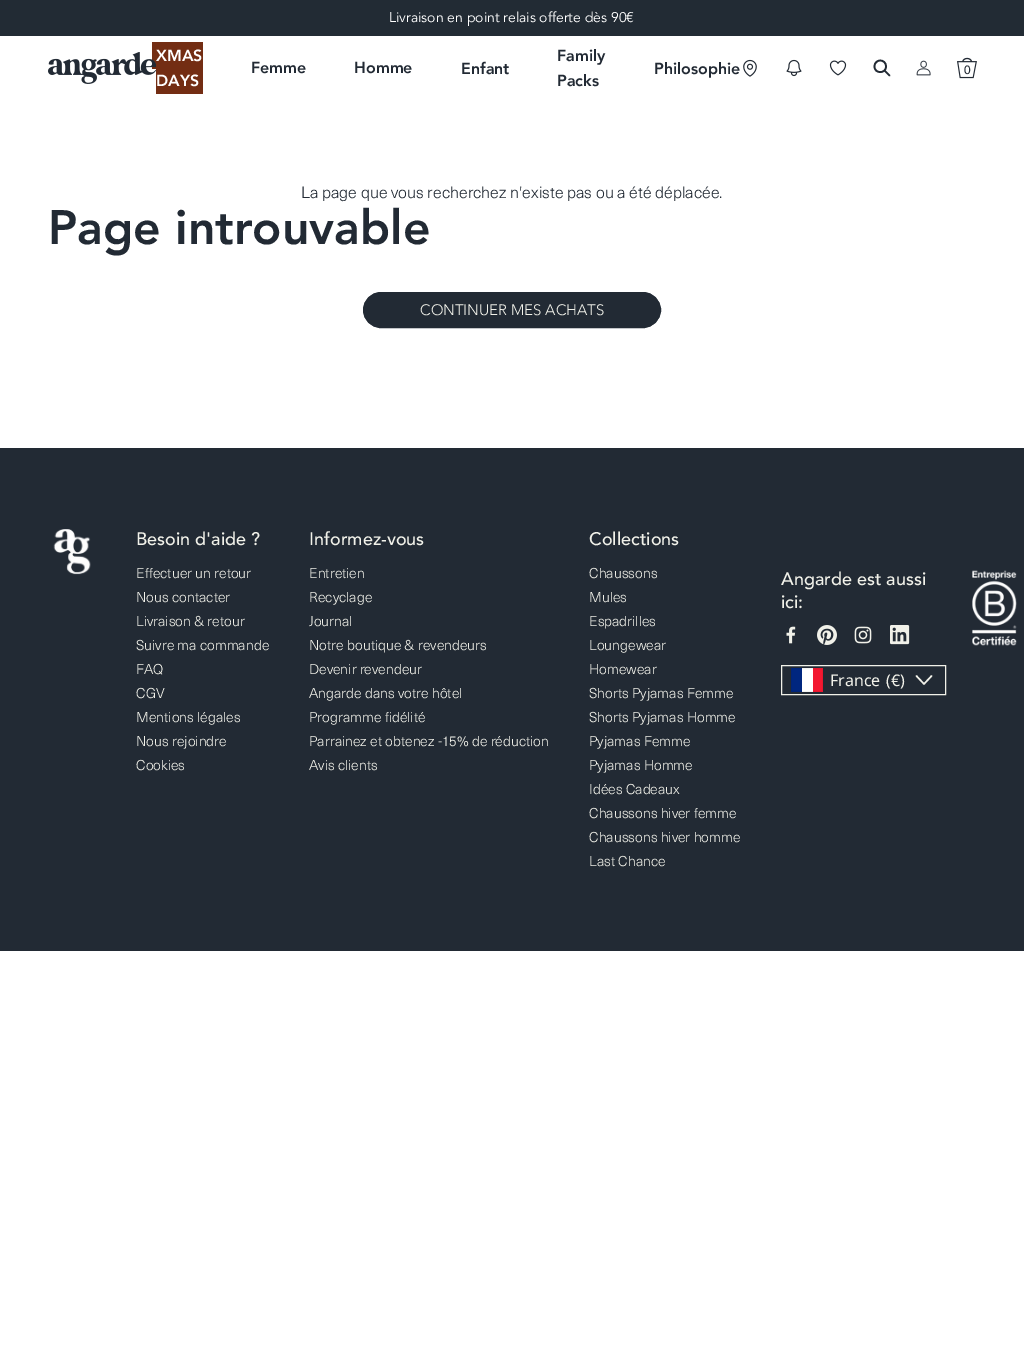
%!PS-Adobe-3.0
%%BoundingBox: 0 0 1024 1363
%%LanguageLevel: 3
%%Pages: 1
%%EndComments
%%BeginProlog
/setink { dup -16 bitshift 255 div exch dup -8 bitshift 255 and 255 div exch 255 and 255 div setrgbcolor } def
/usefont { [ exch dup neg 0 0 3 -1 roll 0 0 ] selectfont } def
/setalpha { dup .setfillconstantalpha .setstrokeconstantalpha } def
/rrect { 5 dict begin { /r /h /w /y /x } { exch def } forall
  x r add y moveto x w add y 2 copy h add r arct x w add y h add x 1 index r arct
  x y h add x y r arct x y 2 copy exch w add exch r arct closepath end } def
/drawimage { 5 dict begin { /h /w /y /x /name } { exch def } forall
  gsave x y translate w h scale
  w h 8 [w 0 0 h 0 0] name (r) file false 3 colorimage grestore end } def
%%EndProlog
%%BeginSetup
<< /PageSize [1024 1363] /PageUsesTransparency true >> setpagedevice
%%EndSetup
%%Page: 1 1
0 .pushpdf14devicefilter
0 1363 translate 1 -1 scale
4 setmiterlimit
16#FFFFFF setink
0 0 1024 1363 rectfill
16#222B34 setink
0 0 1024 36 rectfill
/Avenir-Regular 14 usefont
16#FFFFFF setink
389 22 moveto (Livraison en point relais offerte dès 90€) show
16#732D13 setink
152 42 51 27 rectfill
(img1.raw) 48 52 108 32 drawimage
/Avenir-Black 16 usefont
16#FFFFFF setink
156 61 moveto (XMAS) show
16#732D13 setink
156 69 47 25 rectfill
16#FFFFFF setink
156 86 moveto (DAYS) show
16#222A34 setink
[
    [(Femme) 251 73]
    [(Homme) 354 73]
    [(Enfant) 461 74]
    [(Family) 557 61]
    [(Packs) 557 86]
    [(Philosophie) 654 74]
] { aload pop moveto show } forall
(img2.raw) 743 59 14 18 drawimage
(img3.raw) 786 59 16 18 drawimage
(img4.raw) 829 60 18 16 drawimage
1.7 setlinewidth
1 setlinecap
1 setlinejoin
889.5 75.5 moveto 884.5 70.5 lineto 886 66.5 moveto 886 74 874.5 74 874.5 66.5 curveto 874.5 58.5 886 58.5 886 66.5 curveto closepath stroke
(img5.raw) 916 60 15 16 drawimage
(img6.raw) 957 57 20 22 drawimage
/Avenir-Medium 12 usefont
964 74 moveto (0) show
/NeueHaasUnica-Light 16 usefont
301 198 moveto (La page que vous recherchez n'existe pas ou a été déplacée.) show
/Avenir-Black 48 usefont
48 244 moveto (Page introuvable) show
363.5 292.5 297 35 17.5 rrect gsave fill grestore
1 setlinewidth
0 setlinecap
0 setlinejoin
stroke
/Avenir-Light 15 usefont
16#F1F1E9 setink
420 315 moveto (CONTINUER MES ACHATS) show
16#222A34 setink
0 448 1024 503 rectfill
(img7.raw) 53 529 38 46 drawimage
/Avenir-Medium 18 usefont
16#F1F1E9 setink
136 545 moveto (Besoin d'aide ?) show
/NeueHaasUnica-Light 14 usefont
[
    [(Effectuer un retour) 136 578]
    [(Nous contacter) 136 602]
    [(Livraison & retour) 136 626]
    [(Suivre ma commande) 136 650]
    [(FAQ) 136 674]
    [(CGV) 136 698]
    [(Mentions légales) 136 722]
    [(Nous rejoindre) 136 746]
    [(Cookies) 136 770]
] { aload pop moveto show } forall
/Avenir-Medium 18 usefont
309 545 moveto (Informez-vous) show
/NeueHaasUnica-Light 14 usefont
[
    [(Entretien) 309 578]
    [(Recyclage) 309 602]
    [(Journal) 309 626]
    [(Notre boutique & revendeurs) 309 650]
    [(Devenir revendeur) 309 674]
    [(Angarde dans votre hôtel) 309 698]
    [(Programme fidélité) 309 722]
    [(Parrainez et obtenez -15% de réduction) 309 746]
    [(Avis clients) 309 770]
] { aload pop moveto show } forall
/Avenir-Medium 18 usefont
589 545 moveto (Collections) show
/NeueHaasUnica-Light 14 usefont
[
    [(Chaussons) 589 578]
    [(Mules) 589 602]
    [(Espadrilles) 589 626]
    [(Loungewear) 589 650]
    [(Homewear) 589 674]
    [(Shorts Pyjamas Femme) 589 698]
    [(Shorts Pyjamas Homme) 589 722]
    [(Pyjamas Femme) 589 746]
    [(Pyjamas Homme) 589 770]
    [(Idées Cadeaux) 589 794]
    [(Chaussons hiver femme) 589 818]
    [(Chaussons hiver homme) 589 842]
    [(Last Chance) 589 866]
] { aload pop moveto show } forall
/Avenir-Medium 18 usefont
781 585 moveto (Angarde est aussi) show
781 608 moveto (ici:) show
(img8.raw) 786 626 10 18 drawimage
(img9.raw) 817 625 20 20 drawimage
(img10.raw) 854 626 18 18 drawimage
(img11.raw) 890 625 20 20 drawimage
781.5 665.5 164 29 rectstroke
[
    [802 668 11 24 16#FFFFFF]
    [791 668 11 24 16#00267F]
    [813 668 10 24 16#F31830]
] { aload pop setink rectfill } forall
0.05 setalpha
16#000000 setink
791.5 668.5 31 23 rectstroke
/NotoSans-Regular 16 usefont
1 setalpha
16#F1F1E9 setink
830 686 moveto (France) show
886 686 moveto (\(€\)) show
1.5 setlinewidth
1 setlinecap
1 setlinejoin
931.5 676 moveto 924 684 lineto 916.5 676 lineto stroke
(img12.raw) 972 570 45 76 drawimage
.poppdf14devicefilter showpage
%%EOF
